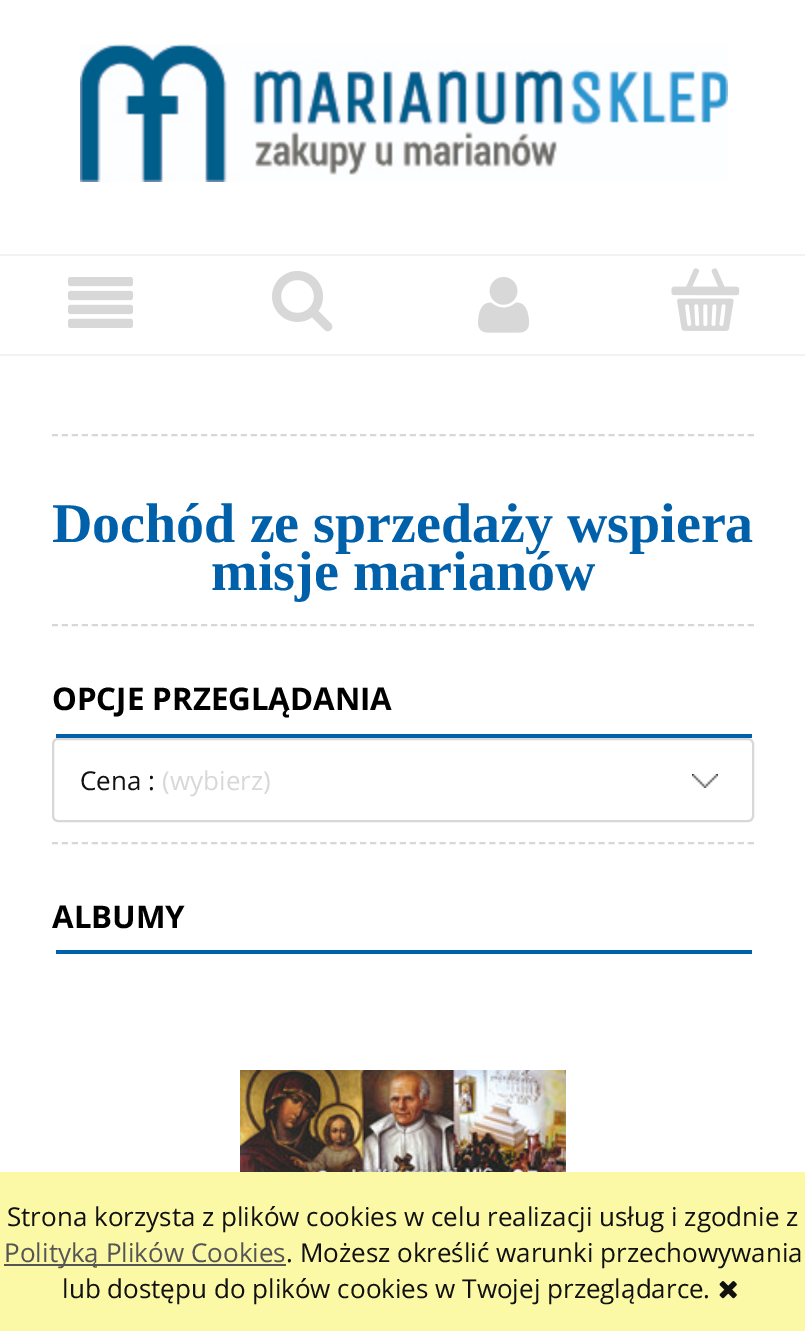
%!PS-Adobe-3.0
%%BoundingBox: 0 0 805 1331
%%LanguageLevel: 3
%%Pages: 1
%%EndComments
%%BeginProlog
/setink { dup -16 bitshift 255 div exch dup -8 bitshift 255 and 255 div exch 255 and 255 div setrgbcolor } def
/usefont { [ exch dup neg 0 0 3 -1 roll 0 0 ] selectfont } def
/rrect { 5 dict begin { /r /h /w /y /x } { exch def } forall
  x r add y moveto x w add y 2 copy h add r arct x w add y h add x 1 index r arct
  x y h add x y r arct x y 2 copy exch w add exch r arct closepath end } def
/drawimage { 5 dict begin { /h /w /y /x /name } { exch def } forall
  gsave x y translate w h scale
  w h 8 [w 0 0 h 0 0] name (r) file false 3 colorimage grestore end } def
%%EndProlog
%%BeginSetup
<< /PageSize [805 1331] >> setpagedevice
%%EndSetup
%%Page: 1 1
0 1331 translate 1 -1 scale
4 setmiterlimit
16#FFFFFF setink
0 0 805 1331 rectfill
(img1.raw) 80 44 648 138 drawimage
16#F2F2F2 setink
0 254 805 2 rectfill
0 354 805 2 rectfill
(img2.raw) 68 277 65 51 drawimage
(img3.raw) 272 271 61 61 drawimage
(img4.raw) 478 277 51 56 drawimage
(img5.raw) 671 268 69 63 drawimage
16#D7D7D7 setink
2 setlinewidth
[6 3.94] 0 setdash
52 435 moveto 754 435 lineto stroke
52 625 moveto 754 625 lineto stroke
/LiberationSerif-Bold 56 usefont
16#0060AA setink
52 542 moveto (Dochód ze sprzedaży wspiera) show
211 590 moveto (misje marianów) show
16#D7D7D7 setink
52 843 moveto 754 843 lineto stroke
16#0060AA setink
56 734 696 4 rectfill
/OpenSans-Bold 31.25 usefont
16#000000 setink
52 710 moveto (OPCJE PRZEGLĄDANIA) show
(img6.raw) 692 774 26 14 drawimage
16#D8D8D8 setink
[] 0 setdash
53 739 700 82 5 rrect stroke
/OpenSans-Regular 26 usefont
16#111111 setink
80 790 moveto (Cena :) show
16#D8D8D8 setink
162 790 moveto (\(wybierz\)) show
16#0060AA setink
56 950 696 4 rectfill
/OpenSans-Bold 31.25 usefont
16#000000 setink
52 928 moveto (ALBUMY) show
(img7.raw) 240 1070 326 102 drawimage
16#FCF9A6 setink
0 1172 805 159 rectfill
/OpenSans-Regular 26 usefont
16#111111 setink
7 1226 moveto (Strona korzysta z plików cookies w celu realizacji usług i zgodnie z) show
16#555555 setink
4 1264 282 2 rectfill
4 1262 moveto (Polityką Plików Cookies) show
16#111111 setink
286 1262 moveto (. Możesz określić warunki przechowywania) show
62 1298 moveto (lub dostępu do plików cookies w Twojej przeglądarce.) show
(img8.raw) 719 1281 18 18 drawimage
showpage
%%EOF
